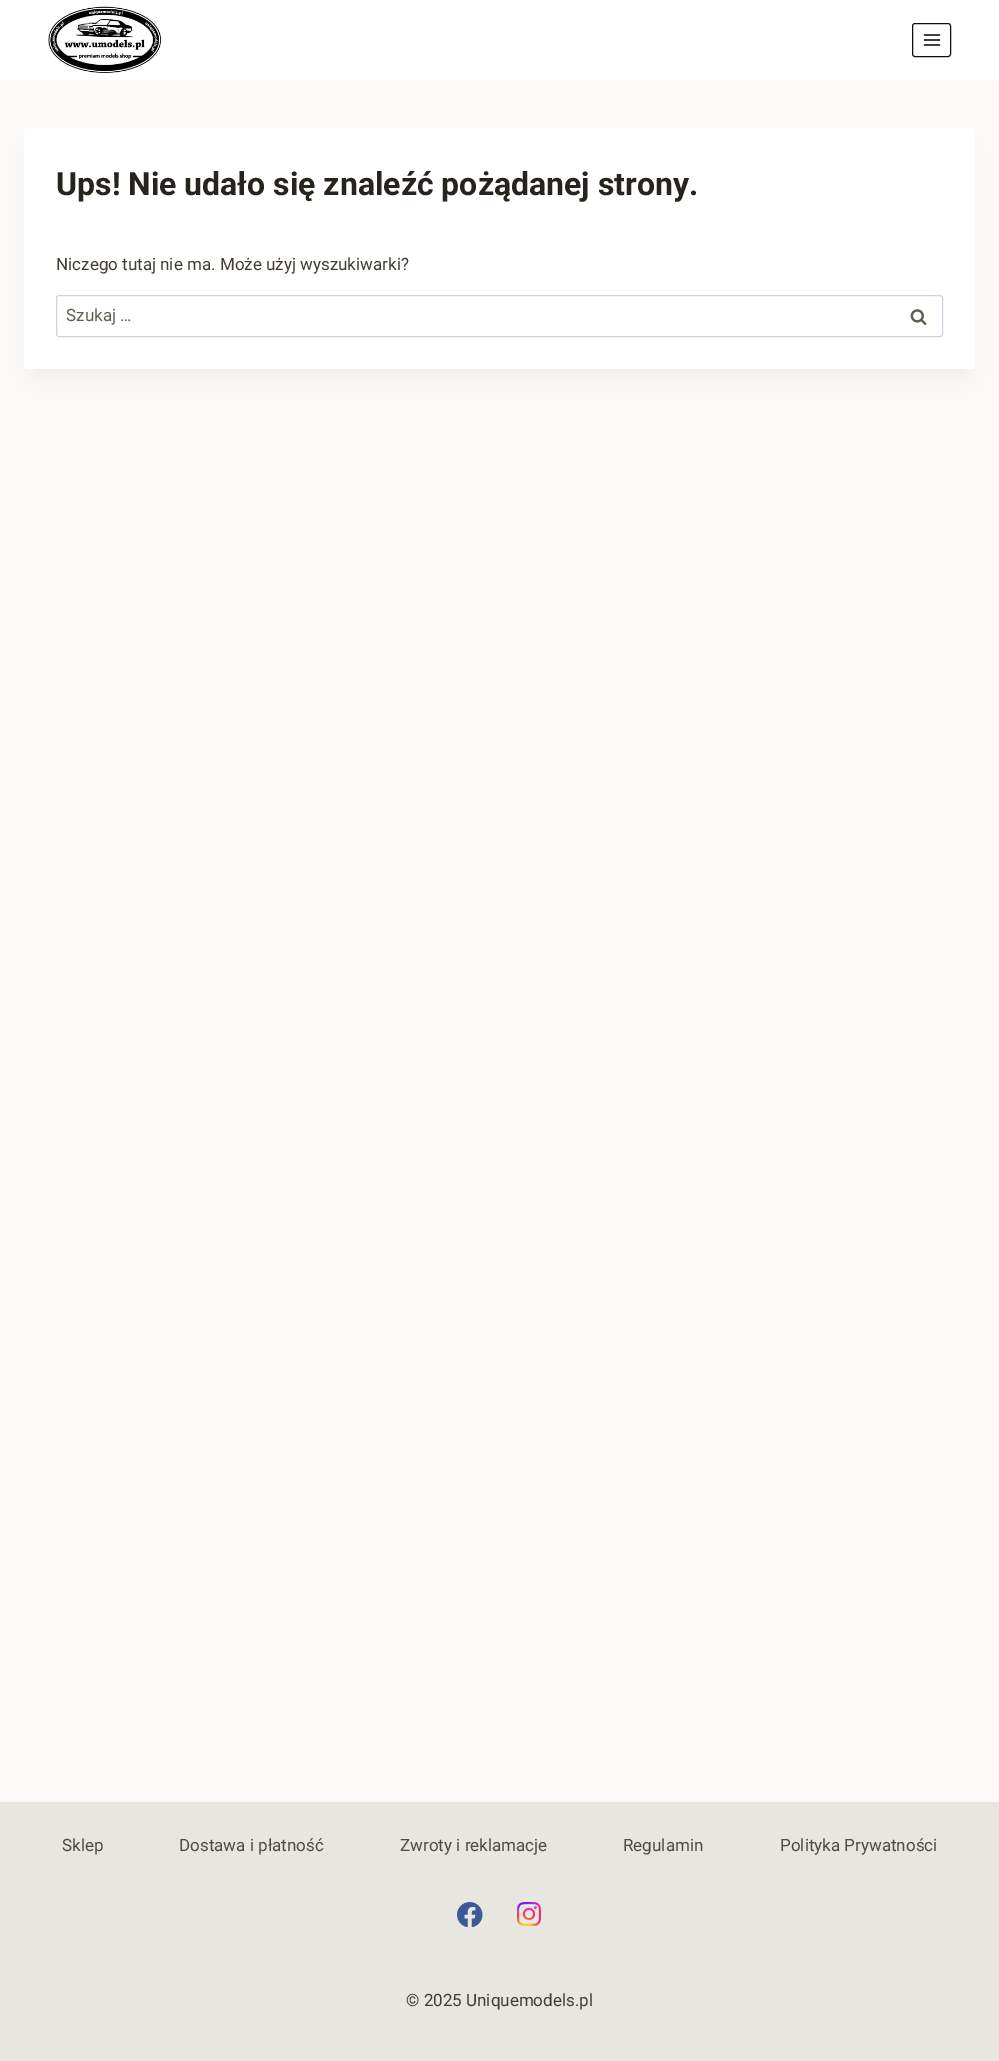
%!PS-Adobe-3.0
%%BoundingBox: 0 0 999 2061
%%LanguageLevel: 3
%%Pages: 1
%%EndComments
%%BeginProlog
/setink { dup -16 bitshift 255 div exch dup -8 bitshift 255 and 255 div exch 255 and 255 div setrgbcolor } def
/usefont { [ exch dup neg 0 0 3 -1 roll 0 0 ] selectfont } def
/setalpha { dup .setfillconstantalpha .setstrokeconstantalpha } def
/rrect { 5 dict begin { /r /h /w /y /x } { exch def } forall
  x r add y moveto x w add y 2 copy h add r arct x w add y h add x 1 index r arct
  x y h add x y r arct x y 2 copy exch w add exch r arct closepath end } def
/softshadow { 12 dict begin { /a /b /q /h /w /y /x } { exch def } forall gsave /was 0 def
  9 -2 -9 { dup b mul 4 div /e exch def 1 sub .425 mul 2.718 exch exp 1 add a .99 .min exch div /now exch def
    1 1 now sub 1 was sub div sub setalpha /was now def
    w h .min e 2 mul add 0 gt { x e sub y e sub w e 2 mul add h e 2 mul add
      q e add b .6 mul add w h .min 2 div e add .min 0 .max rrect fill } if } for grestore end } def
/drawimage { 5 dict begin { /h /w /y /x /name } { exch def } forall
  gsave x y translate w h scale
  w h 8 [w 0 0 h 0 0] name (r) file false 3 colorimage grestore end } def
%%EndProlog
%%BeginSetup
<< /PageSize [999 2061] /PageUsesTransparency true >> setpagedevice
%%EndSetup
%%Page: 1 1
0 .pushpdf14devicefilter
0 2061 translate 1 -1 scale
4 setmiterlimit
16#FAF9F7 setink
0 0 999 2061 rectfill
16#FFFFFF setink
0 0 999 80 rectfill
(img1.raw) 48 6 114 67 drawimage
16#101010 setink
912.5 23.5 38 33 2.5 rrect stroke
(img2.raw) 923 34 18 12 drawimage
16#000000 setink
34 153 931 221 0 12.5 0.05 softshadow
16#FFFFFF setink
24 128 951 241 4 rrect fill
/Roboto-Bold 32 usefont
16#27241D setink
56 195 moveto (Ups! Nie udało się znaleźć pożądanej strony.) show
/Roboto-Regular 17 usefont
16#423D33 setink
56 270 moveto (Niczego tutaj nie ma. Może użyj wyszukiwarki?) show
16#CBD5E0 setink
56.5 295.5 886 41 2.5 rrect stroke
16#625D52 setink
66 321 moveto (Szukaj …) show
(img3.raw) 910 309 17 16 drawimage
16#E8E6E1 setink
0 1802 999 259 rectfill
16#504A40 setink
[
    [(Sklep) 62 1851]
    [(Dostawa i płatność) 179 1851]
    [(Zwroty i reklamacje) 400 1851]
    [(Regulamin) 623 1851]
    [(Polityka Prywatności) 780 1851]
] { aload pop moveto show } forall
(img4.raw) 457 1902 26 25 drawimage
(img5.raw) 517 1902 24 24 drawimage
16#423D33 setink
406 2006 moveto (© 2025 Uniquemodels.pl) show
.poppdf14devicefilter showpage
%%EOF
